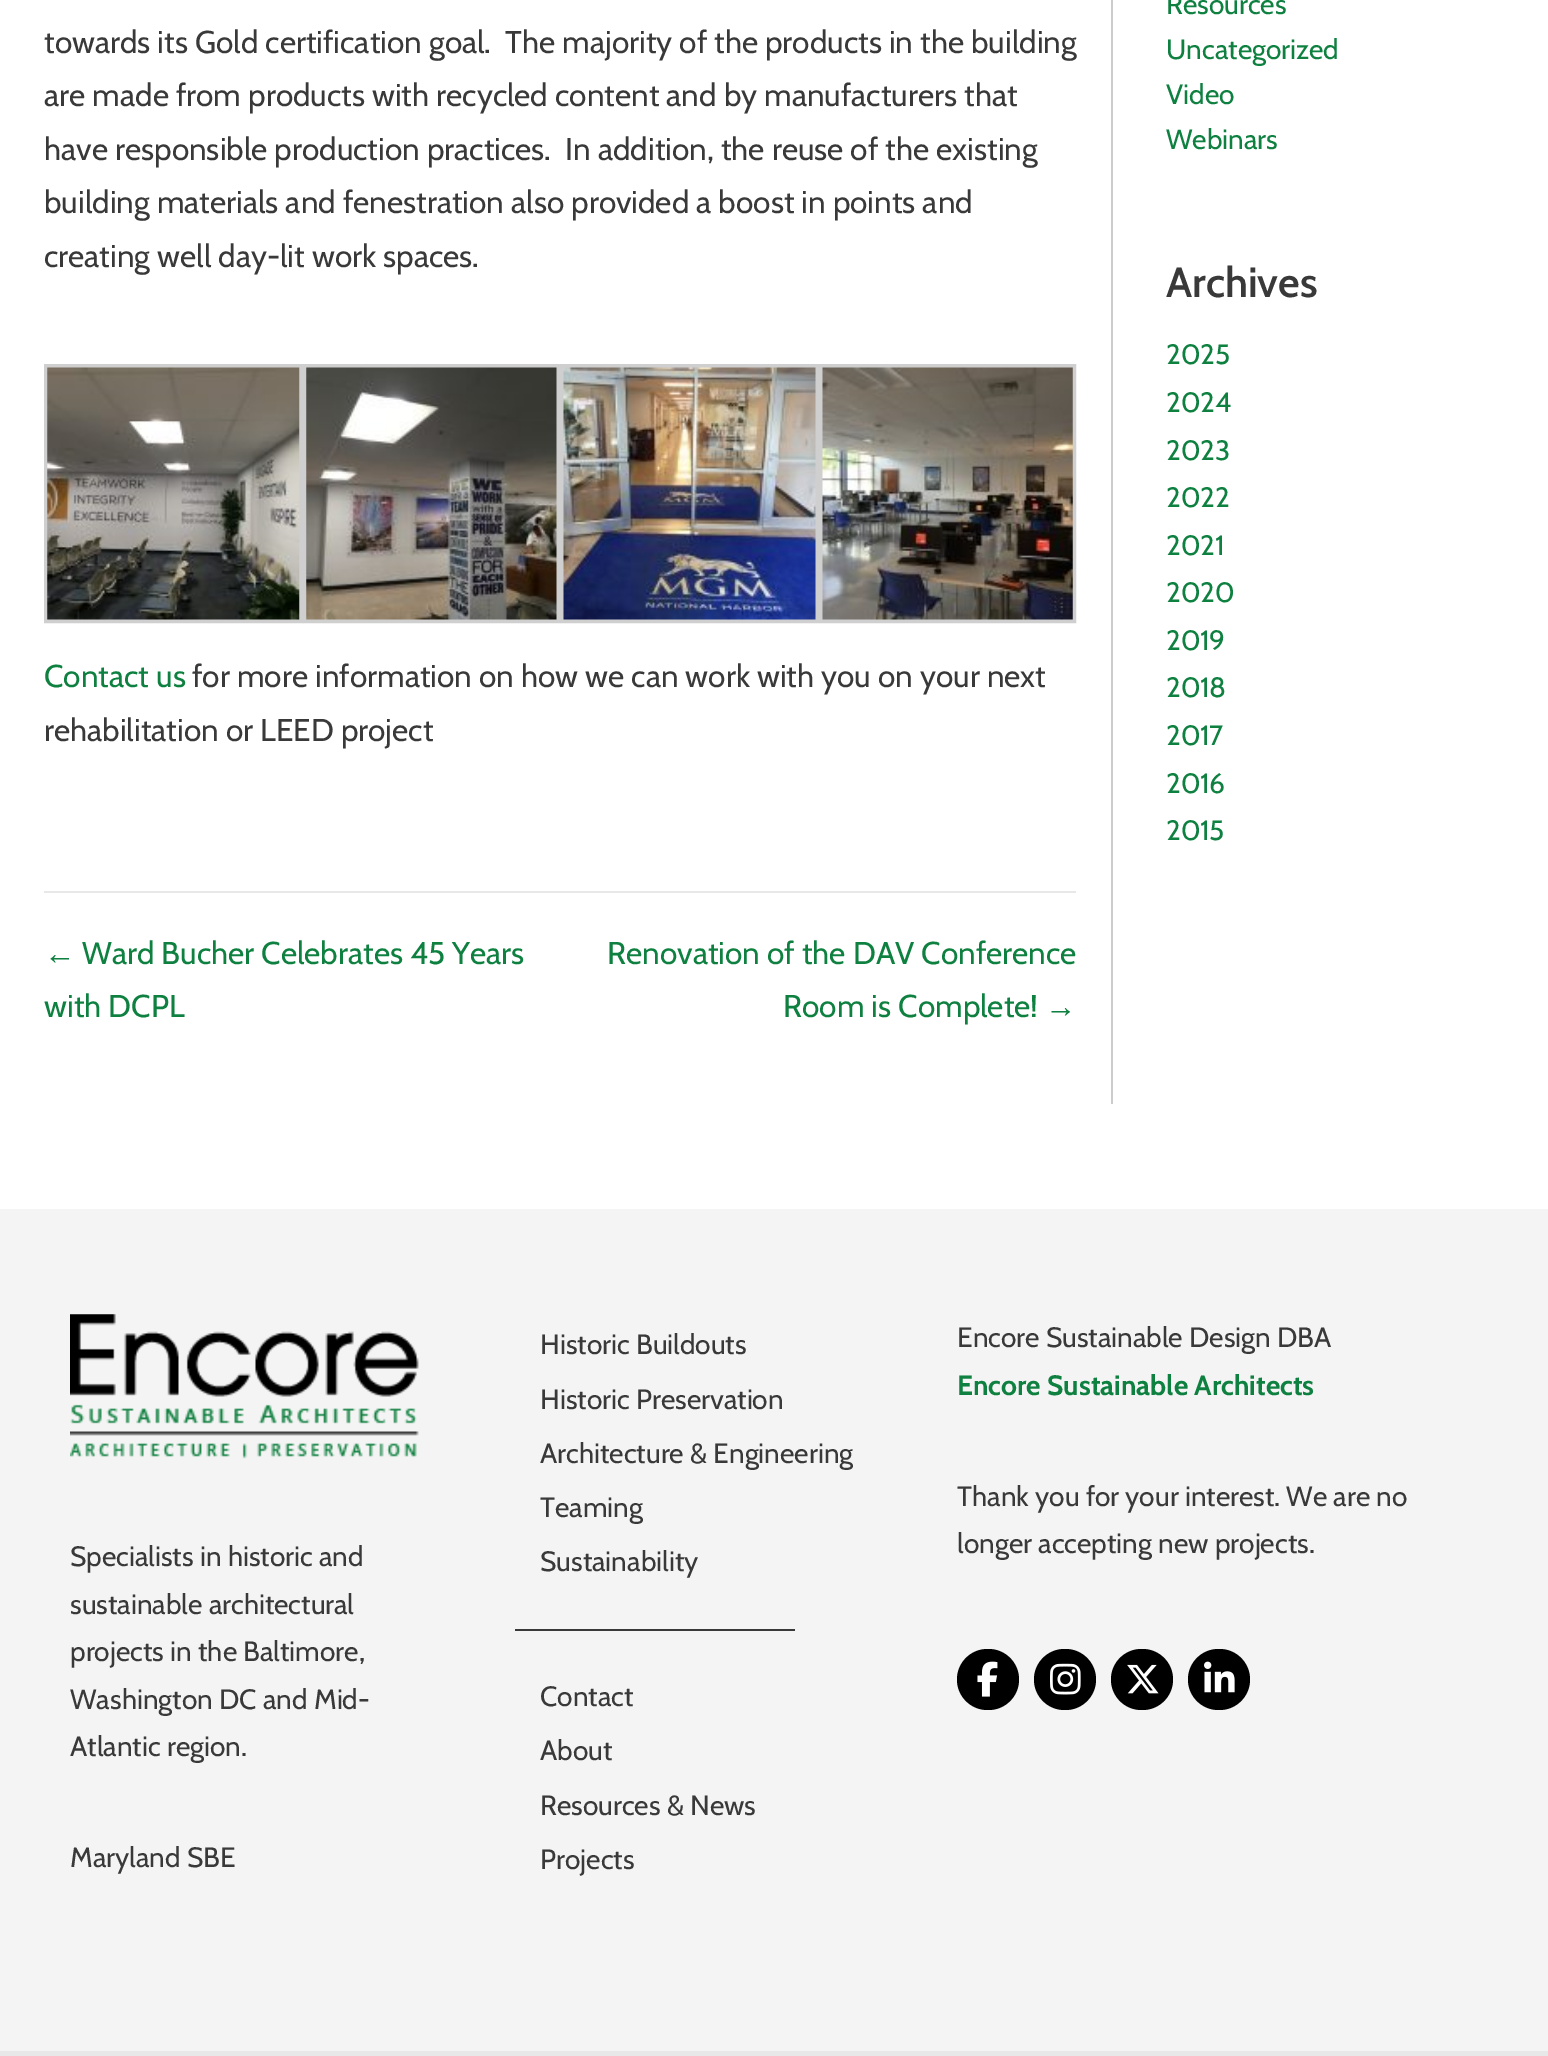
%!PS-Adobe-3.0
%%BoundingBox: 0 0 1548 2056
%%LanguageLevel: 3
%%Pages: 1
%%EndComments
%%BeginProlog
/setink { dup -16 bitshift 255 div exch dup -8 bitshift 255 and 255 div exch 255 and 255 div setrgbcolor } def
/usefont { [ exch dup neg 0 0 3 -1 roll 0 0 ] selectfont } def
/rrect { 5 dict begin { /r /h /w /y /x } { exch def } forall
  x r add y moveto x w add y 2 copy h add r arct x w add y h add x 1 index r arct
  x y h add x y r arct x y 2 copy exch w add exch r arct closepath end } def
/drawimage { 5 dict begin { /h /w /y /x /name } { exch def } forall
  gsave x y translate w h scale
  w h 8 [w 0 0 h 0 0] name (r) file false 3 colorimage grestore end } def
%%EndProlog
%%BeginSetup
<< /PageSize [1548 2056] >> setpagedevice
%%EndSetup
%%Page: 1 1
0 2056 translate 1 -1 scale
4 setmiterlimit
16#FFFFFF setink
0 0 1548 2056 rectfill
/Cabin-Regular 31.5 usefont
16#393939 setink
[
    [(towards its Gold certification goal.  The majority of the products in the building) 44 53]
    [(are made from products with recycled content and by manufacturers that) 44 106]
    [(have responsible production practices.  In addition, the reuse of the existing) 44 160]
    [(building materials and fenestration also provided a boost in points and) 44 213]
    [(creating well day-lit work spaces.) 44 267]
] { aload pop moveto show } forall
16#CFCFCF setink
4 setlinewidth
46 366 255 255 rectstroke
(img1.raw) 47 367 253 253 drawimage
305 366 253 255 rectstroke
(img2.raw) 306 367 251 253 drawimage
562 366 255 255 rectstroke
(img3.raw) 563 367 253 253 drawimage
821 366 253 255 rectstroke
(img4.raw) 822 367 251 253 drawimage
16#0E8040 setink
44 687 moveto (Contact us) show
16#393939 setink
192 687 moveto (for more information on how we can work with you on your next) show
44 741 moveto (rehabilitation or LEED project) show
16#E8E8E8 setink
44 891 1032 2 rectfill
/LiberationSans-Regular 31.5 usefont
16#0E8040 setink
44 964 moveto (←) show
/Cabin-Regular 31.5 usefont
[
    [(Ward Bucher Celebrates 45 Years) 82 964]
    [(with DCPL) 44 1017]
    [(Renovation of the DAV Conference) 607 964]
    [(Room is Complete!) 783 1017]
] { aload pop moveto show } forall
/LiberationSans-Regular 31.5 usefont
1045 1017 moveto (→) show
16#CCCCCC setink
1111 0 2 1104 rectfill
/Cabin-Regular 28 usefont
16#0E8040 setink
[
    [(Resources) 1166 14]
    [(Uncategorized) 1166 59]
    [(Video) 1166 104]
    [(Webinars) 1166 149]
] { aload pop moveto show } forall
/Cabin-SemiBold 42 usefont
16#393939 setink
1166 297 moveto (Archives) show
/Cabin-Regular 28 usefont
16#0E8040 setink
[
    [(2025) 1166 364]
    [(2024) 1166 412]
    [(2023) 1166 460]
    [(2022) 1166 507]
    [(2021) 1166 555]
    [(2020) 1166 602]
    [(2019) 1166 650]
    [(2018) 1166 697]
    [(2017) 1166 745]
    [(2016) 1166 793]
    [(2015) 1166 840]
] { aload pop moveto show } forall
16#F4F4F4 setink
0 1209 1548 842 rectfill
(img5.raw) 70 1314 349 145 drawimage
16#393939 setink
[
    [(Specialists in historic and) 70 1566]
    [(sustainable architectural) 70 1614]
    [(projects in the Baltimore,) 70 1661]
    [(Washington DC and Mid-) 70 1709]
    [(Atlantic region.) 70 1756]
    [(Maryland SBE) 70 1867]
    [(Historic Buildouts) 540 1354]
    [(Historic Preservation) 540 1409]
    [(Architecture & Engineering) 540 1463]
    [(Teaming) 540 1517]
    [(Sustainability) 540 1571]
] { aload pop moveto show } forall
515 1629 280 2 rectfill
[
    [(Contact) 540 1706]
    [(About) 540 1760]
    [(Resources & News) 540 1815]
    [(Projects) 540 1869]
    [(Encore Sustainable Design DBA) 957 1347]
] { aload pop moveto show } forall
/Cabin-Bold 28 usefont
16#0E8040 setink
957 1395 moveto (Encore Sustainable Architects) show
/Cabin-Regular 28 usefont
16#393939 setink
957 1506 moveto (Thank you for your interest. We are no) show
957 1553 moveto (longer accepting new projects.) show
16#000000 setink
957 1649 62 61 30.5 rrect fill
(img6.raw) 977 1661 21 36 drawimage
1034 1649 62 61 30.5 rrect fill
(img7.raw) 1050 1663 31 32 drawimage
1111 1649 62 61 30.5 rrect fill
(img8.raw) 1127 1664 32 30 drawimage
1188 1649 62 61 30.5 rrect fill
(img9.raw) 1204 1661 31 32 drawimage
16#E8E8E8 setink
0 2051 1548 5 rectfill
showpage
%%EOF
